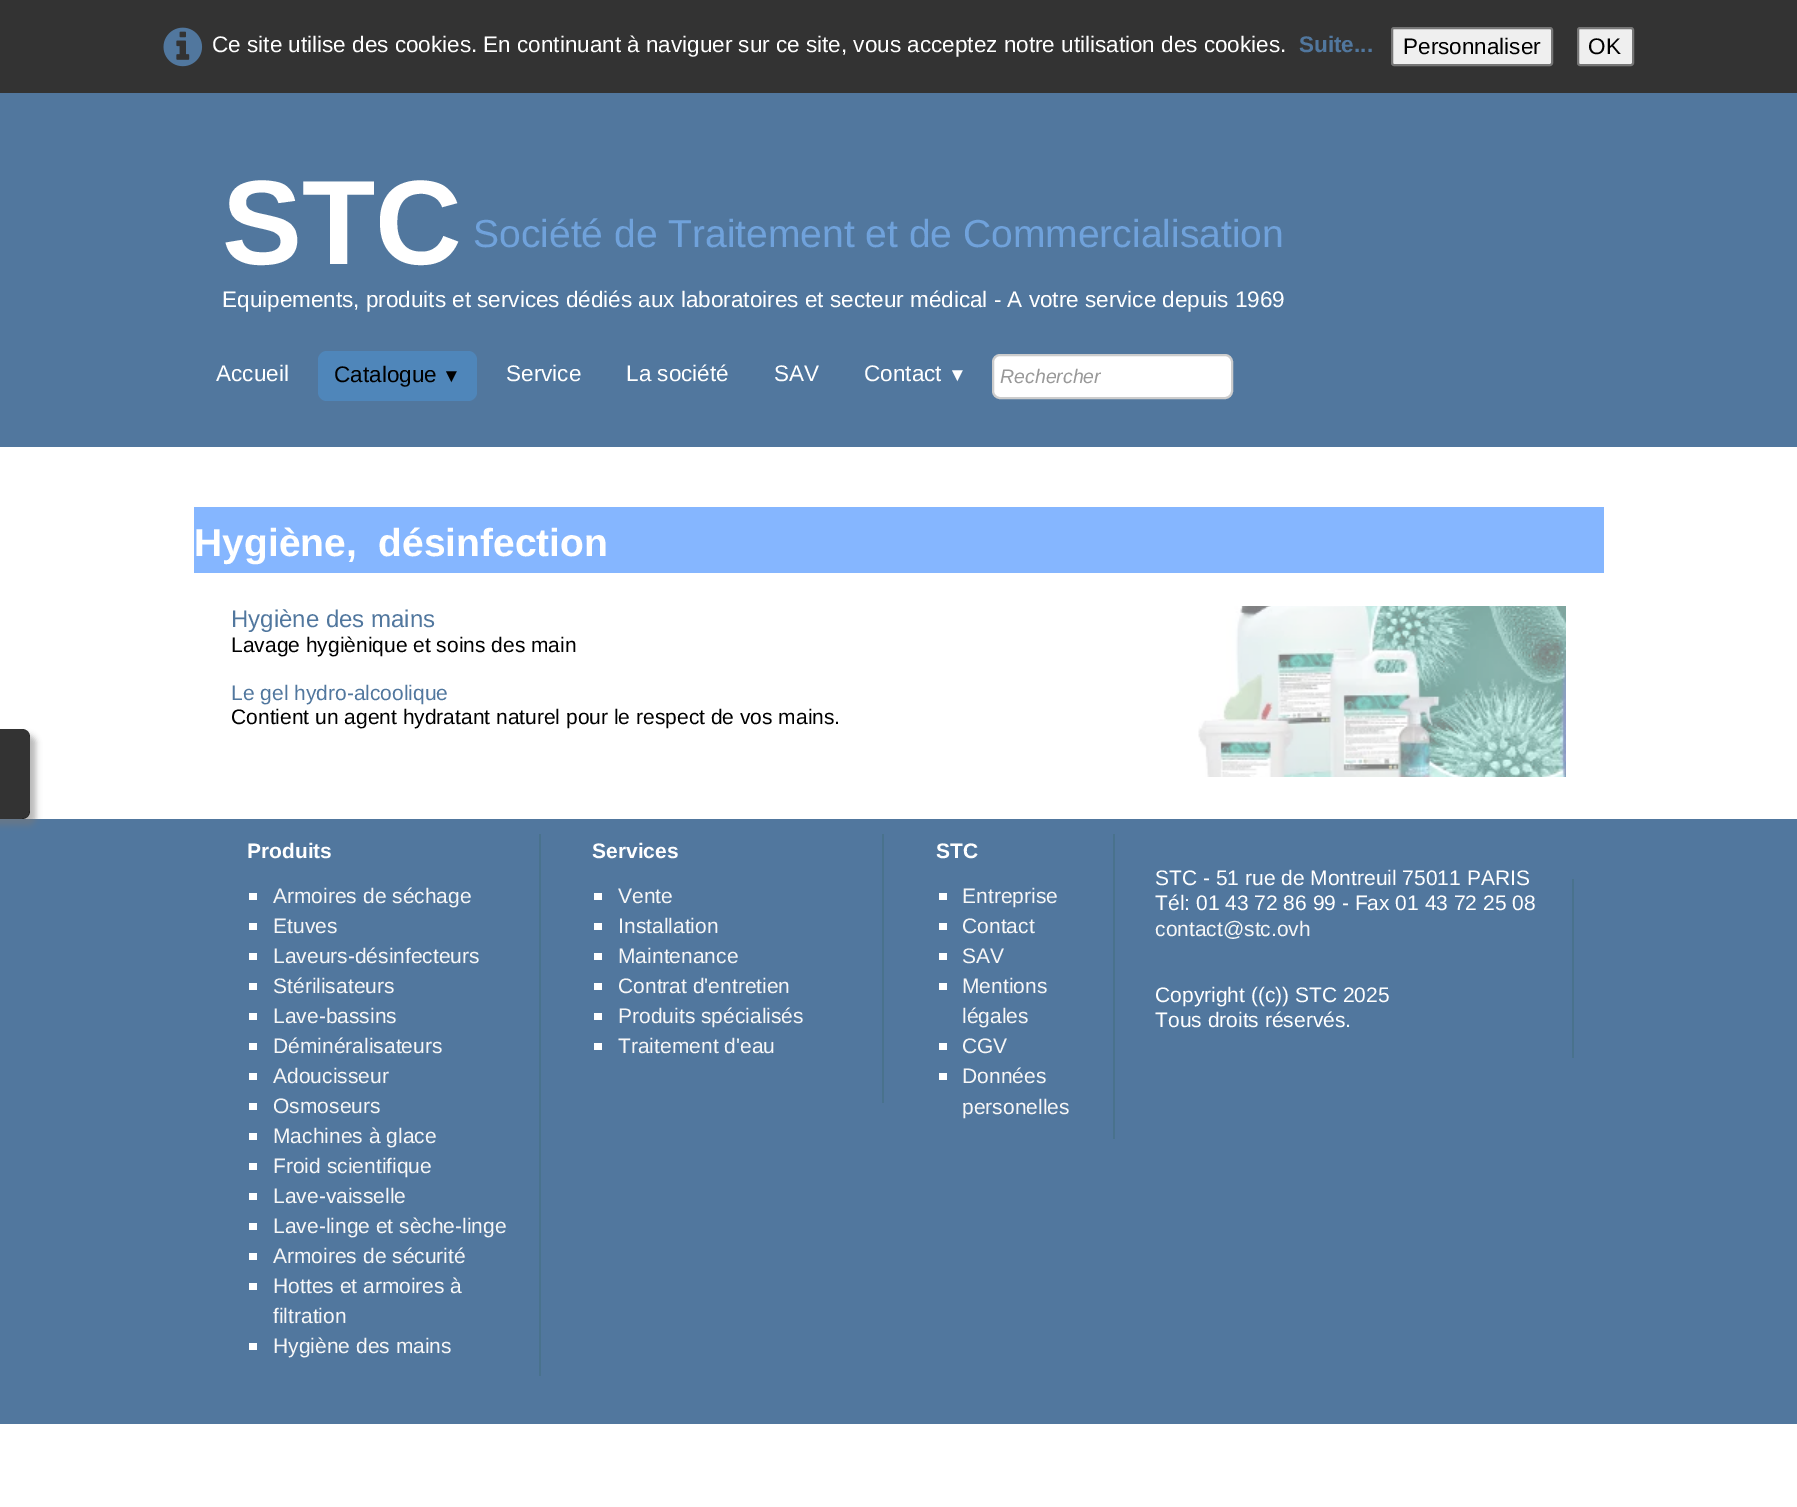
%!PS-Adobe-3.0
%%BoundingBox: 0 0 1797 1507
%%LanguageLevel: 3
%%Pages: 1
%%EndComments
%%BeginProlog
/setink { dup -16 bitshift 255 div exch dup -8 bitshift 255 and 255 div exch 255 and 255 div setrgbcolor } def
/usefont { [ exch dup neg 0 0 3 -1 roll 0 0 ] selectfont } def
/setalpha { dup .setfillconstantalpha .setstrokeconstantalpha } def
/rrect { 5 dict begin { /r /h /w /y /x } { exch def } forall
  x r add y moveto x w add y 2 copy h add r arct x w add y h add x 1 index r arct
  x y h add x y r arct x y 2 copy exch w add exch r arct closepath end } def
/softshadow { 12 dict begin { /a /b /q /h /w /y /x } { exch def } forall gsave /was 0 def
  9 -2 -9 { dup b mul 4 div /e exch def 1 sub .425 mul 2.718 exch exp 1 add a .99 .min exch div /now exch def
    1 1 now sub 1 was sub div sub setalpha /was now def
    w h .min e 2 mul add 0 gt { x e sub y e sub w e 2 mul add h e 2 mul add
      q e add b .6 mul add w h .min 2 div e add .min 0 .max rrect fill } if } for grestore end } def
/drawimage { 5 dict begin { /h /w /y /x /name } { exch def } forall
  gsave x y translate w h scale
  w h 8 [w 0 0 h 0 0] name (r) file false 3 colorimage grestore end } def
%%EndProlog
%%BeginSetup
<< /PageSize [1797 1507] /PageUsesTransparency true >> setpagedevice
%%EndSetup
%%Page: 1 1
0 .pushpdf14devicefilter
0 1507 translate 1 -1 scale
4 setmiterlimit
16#FFFFFF setink
0 0 1797 1507 rectfill
16#51779E setink
0 819 1797 605 rectfill
gsave
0 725 moveto 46 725 lineto 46 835 lineto 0 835 lineto closepath -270 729 moveto 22 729 lineto 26.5 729 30 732.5 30 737 curveto 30 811 lineto 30 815.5 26.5 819 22 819 curveto -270 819 lineto closepath eoclip newpath
16#797777 setink
-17 735 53 90 8 3 0.51 softshadow
grestore
0.8 setalpha
16#000000 setink
-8 729 moveto 22 729 lineto 26.5 729 30 732.5 30 737 curveto 30 811 lineto 30 815.5 26.5 819 22 819 curveto -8 819 lineto closepath fill
1 setalpha
16#333333 setink
0 0 1797 93 rectfill
(img1.raw) 163 27 40 40 drawimage
/LiberationSans-Regular 22.5 usefont
16#FFFFFF setink
212 52 moveto (Ce site utilise des cookies. En continuant à naviguer sur ce site, vous acceptez notre utilisation des cookies.) show
/LiberationSans-Bold 22.5 usefont
16#51779E setink
1299 52 moveto (Suite...) show
16#EFEFEF setink
1392 28 160 37 2 rrect gsave fill grestore
16#767676 setink
2 setlinewidth
stroke
/LiberationSans-Regular 22.5 usefont
16#000000 setink
1403 54 moveto (Personnaliser) show
16#EFEFEF setink
1578 28 55 37 2 rrect gsave fill grestore
16#767676 setink
stroke
16#000000 setink
1588 54 moveto (OK) show
16#51779E setink
0 93 1797 354 rectfill
/LiberationSans-Bold 120 usefont
16#FFFFFF setink
222 264 moveto (STC) show
/LiberationSans-Regular 39 usefont
16#70A2DB setink
473 247 moveto (Société de Traitement et de Commercialisation) show
/LiberationSans-Regular 22.5 usefont
16#FFFFFF setink
222 307 moveto (Equipements, produits et services dédiés aux laboratoires et secteur médical - A votre service depuis 1969) show
216 381 moveto (Accueil) show
16#4F86BA setink
318 351 159 50 9 rrect fill
16#000000 setink
334 382 moveto (Catalogue) show
/LiberationSans-Regular 19 usefont
442 382 moveto (▼) show
/LiberationSans-Regular 22.5 usefont
16#FFFFFF setink
[
    [(Service) 506 381]
    [(La société) 626 381]
    [(SAV) 774 381]
    [(Contact) 864 381]
] { aload pop moveto show } forall
/LiberationSans-Regular 19 usefont
948 381 moveto (▼) show
993 355 239 43 7 rrect gsave fill grestore
16#CCCCCC setink
stroke
/LiberationSans-Italic 19.5 usefont
16#999999 setink
1000 383 moveto (Rechercher) show
16#85B6FF setink
194 507 1410 66 rectfill
/LiberationSans-Bold 39 usefont
16#FFFFFF setink
194 556 moveto (Hygiène,  désinfection) show
/LiberationSans-Regular 24 usefont
16#51779E setink
231 627 moveto (Hygiène des mains) show
/LiberationSans-Regular 21 usefont
16#000000 setink
231 652 moveto (Lavage hygiènique et soins des main) show
16#51779E setink
231 700 moveto (Le gel hydro-alcoolique) show
16#000000 setink
231 724 moveto (Contient un agent hydratant naturel pour le respect de vos mains.) show
(img2.raw) 1198 606 368 171 drawimage
16#49728D setink
539 834 2 542 rectfill
/LiberationSans-Bold 21 usefont
16#FFFFFF setink
247 858 moveto (Produits) show
249 893 8 7 rectfill
/LiberationSans-Regular 21 usefont
16#F7F7F7 setink
273 903 moveto (Armoires de séchage) show
16#FFFFFF setink
249 923 8 7 rectfill
16#F7F7F7 setink
273 933 moveto (Etuves) show
16#FFFFFF setink
249 953 8 7 rectfill
16#F7F7F7 setink
273 963 moveto (Laveurs-désinfecteurs) show
16#FFFFFF setink
249 983 8 7 rectfill
16#F7F7F7 setink
273 993 moveto (Stérilisateurs) show
16#FFFFFF setink
249 1013 8 7 rectfill
16#F7F7F7 setink
273 1023 moveto (Lave-bassins) show
16#FFFFFF setink
249 1043 8 7 rectfill
16#F7F7F7 setink
273 1053 moveto (Déminéralisateurs) show
16#FFFFFF setink
249 1073 8 7 rectfill
16#F7F7F7 setink
273 1083 moveto (Adoucisseur) show
16#FFFFFF setink
249 1103 8 7 rectfill
16#F7F7F7 setink
273 1113 moveto (Osmoseurs) show
16#FFFFFF setink
249 1133 8 7 rectfill
16#F7F7F7 setink
273 1143 moveto (Machines à glace) show
16#FFFFFF setink
249 1163 8 7 rectfill
16#F7F7F7 setink
273 1173 moveto (Froid scientifique) show
16#FFFFFF setink
249 1193 8 7 rectfill
16#F7F7F7 setink
273 1203 moveto (Lave-vaisselle) show
16#FFFFFF setink
249 1223 8 7 rectfill
16#F7F7F7 setink
273 1233 moveto (Lave-linge et sèche-linge) show
16#FFFFFF setink
249 1253 8 7 rectfill
16#F7F7F7 setink
273 1263 moveto (Armoires de sécurité) show
16#FFFFFF setink
249 1283 8 7 rectfill
16#F7F7F7 setink
273 1293 moveto (Hottes et armoires à) show
273 1323 moveto (filtration) show
16#FFFFFF setink
249 1343 8 7 rectfill
16#F7F7F7 setink
273 1353 moveto (Hygiène des mains) show
16#49728D setink
882 834 2 269 rectfill
/LiberationSans-Bold 21 usefont
16#FFFFFF setink
592 858 moveto (Services) show
594 893 8 7 rectfill
/LiberationSans-Regular 21 usefont
16#F7F7F7 setink
618 903 moveto (Vente) show
16#FFFFFF setink
594 923 8 7 rectfill
16#F7F7F7 setink
618 933 moveto (Installation) show
16#FFFFFF setink
594 953 8 7 rectfill
16#F7F7F7 setink
618 963 moveto (Maintenance) show
16#FFFFFF setink
594 983 8 7 rectfill
16#F7F7F7 setink
618 993 moveto (Contrat d'entretien) show
16#FFFFFF setink
594 1013 8 7 rectfill
16#F7F7F7 setink
618 1023 moveto (Produits spécialisés) show
16#FFFFFF setink
594 1043 8 7 rectfill
16#F7F7F7 setink
618 1053 moveto (Traitement d'eau) show
16#49728D setink
1113 834 2 305 rectfill
/LiberationSans-Bold 21 usefont
16#FFFFFF setink
936 858 moveto (STC) show
939 893 8 7 rectfill
/LiberationSans-Regular 21 usefont
16#F7F7F7 setink
962 903 moveto (Entreprise) show
16#FFFFFF setink
939 923 8 7 rectfill
16#F7F7F7 setink
962 933 moveto (Contact) show
16#FFFFFF setink
939 953 8 7 rectfill
16#F7F7F7 setink
962 963 moveto (SAV) show
16#FFFFFF setink
939 983 8 7 rectfill
16#F7F7F7 setink
962 993 moveto (Mentions) show
962 1023 moveto (légales) show
16#FFFFFF setink
939 1043 8 7 rectfill
16#F7F7F7 setink
962 1053 moveto (CGV) show
16#FFFFFF setink
939 1073 8 7 rectfill
16#F7F7F7 setink
962 1083 moveto (Données) show
962 1114 moveto (personelles) show
16#49728D setink
1572 879 2 179 rectfill
16#FFFFFF setink
1155 885 moveto (STC - 51 rue de Montreuil 75011 PARIS) show
1155 910 moveto (Tél: 01 43 72 86 99 - Fax 01 43 72 25 08) show
16#F7F7F7 setink
1155 936 moveto (contact@stc.ovh) show
16#FFFFFF setink
1155 1002 moveto (Copyright \(\(c\)\) STC 2025) show
1155 1027 moveto (Tous droits réservés.) show
.poppdf14devicefilter showpage
%%EOF
